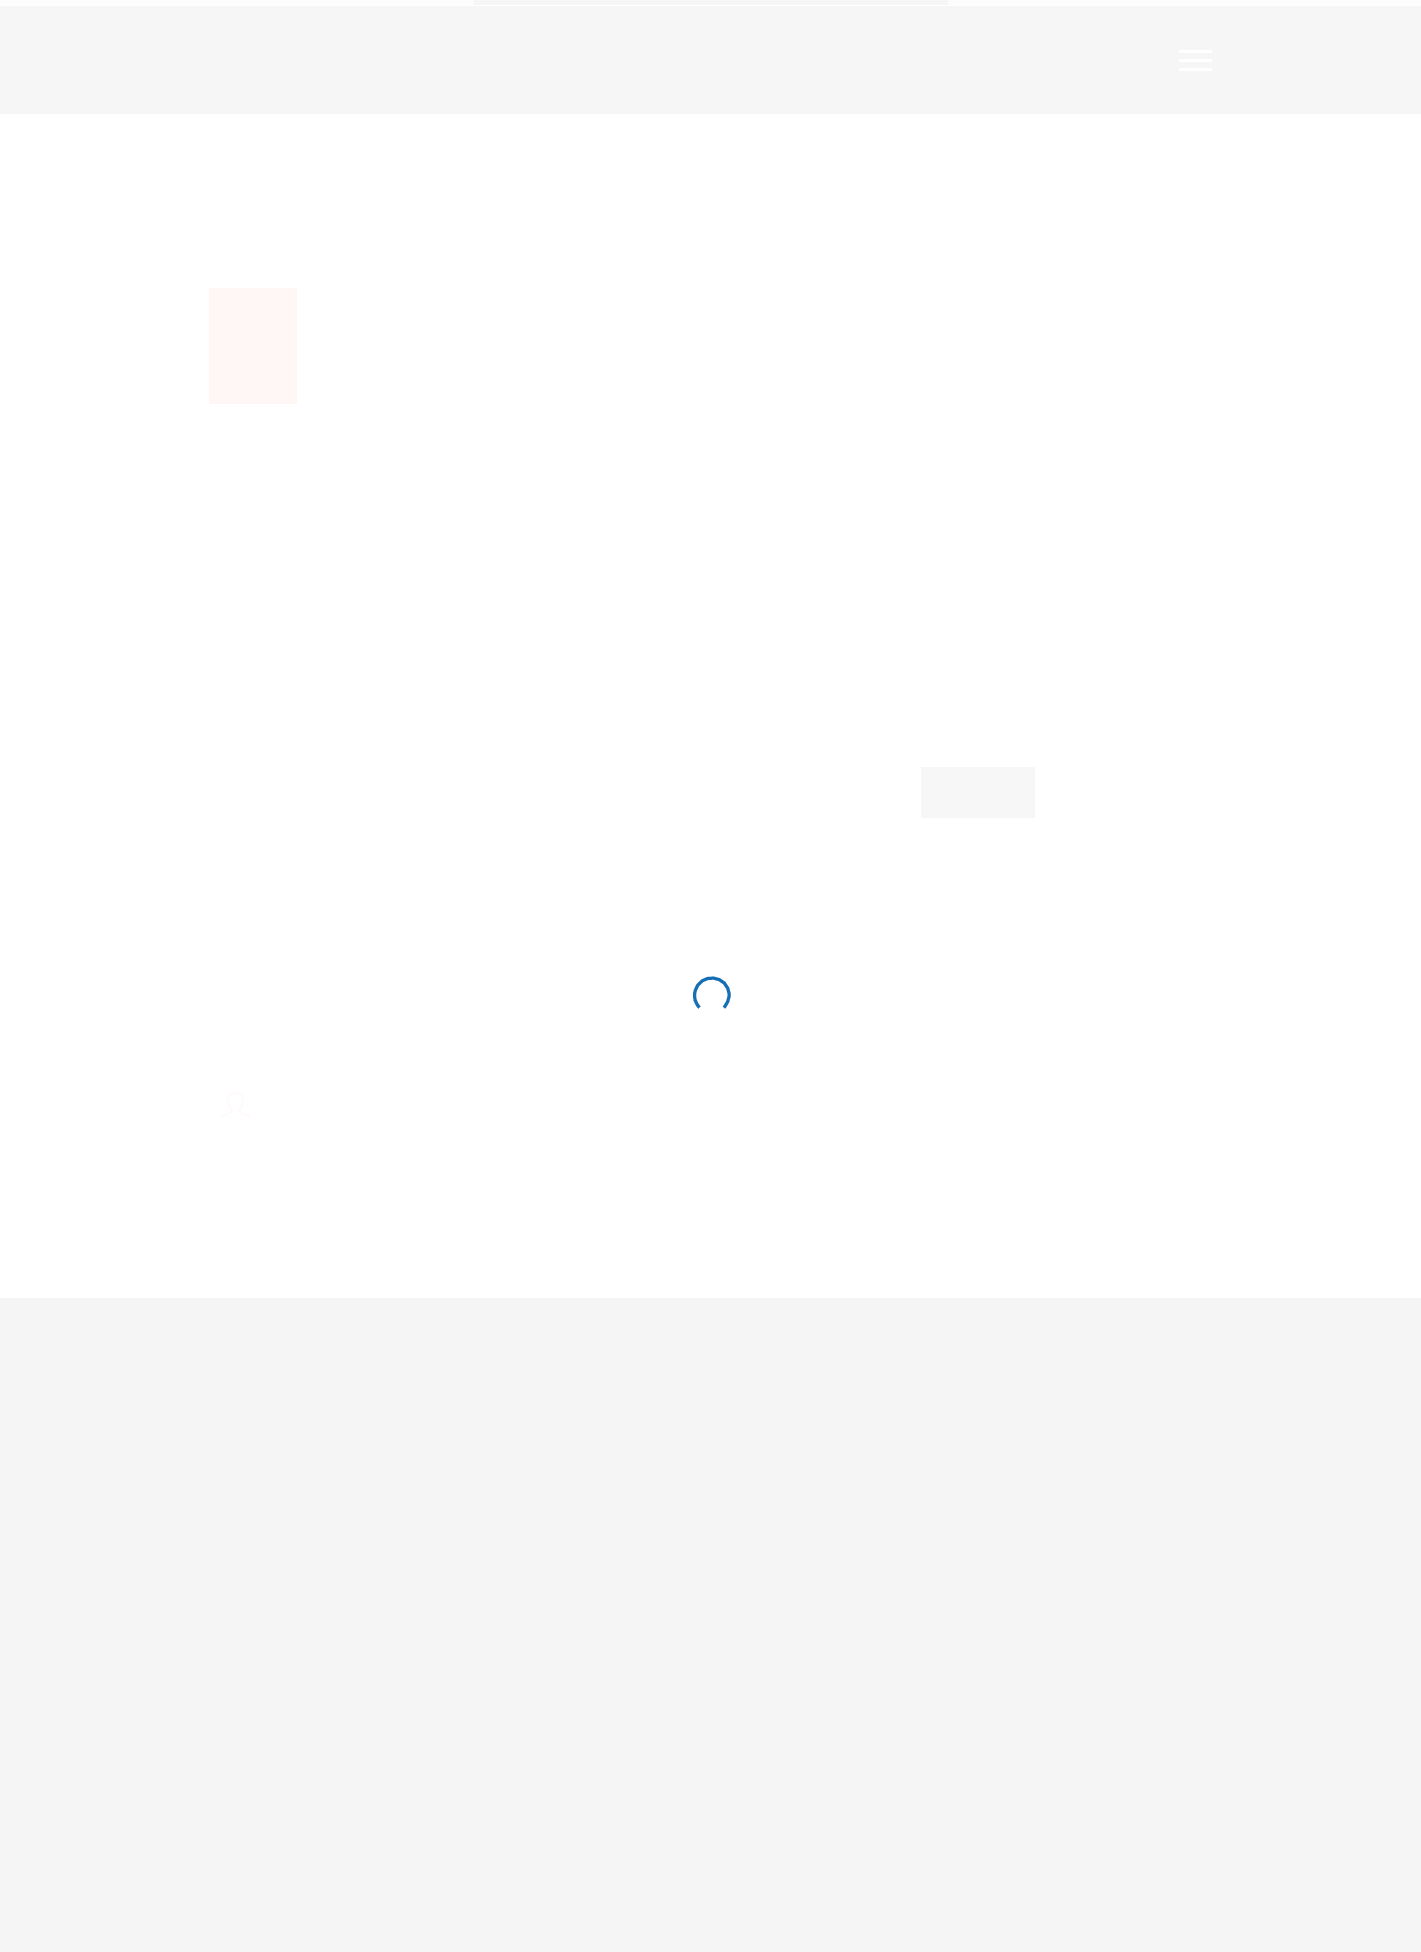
%!PS-Adobe-3.0
%%BoundingBox: 0 0 1421 1952
%%LanguageLevel: 3
%%Pages: 1
%%EndComments
%%BeginProlog
/setink { dup -16 bitshift 255 div exch dup -8 bitshift 255 and 255 div exch 255 and 255 div setrgbcolor } def
/rrect { 5 dict begin { /r /h /w /y /x } { exch def } forall
  x r add y moveto x w add y 2 copy h add r arct x w add y h add x 1 index r arct
  x y h add x y r arct x y 2 copy exch w add exch r arct closepath end } def
/drawimage { 5 dict begin { /h /w /y /x /name } { exch def } forall
  gsave x y translate w h scale
  w h 8 [w 0 0 h 0 0] name (r) file false 3 colorimage grestore end } def
%%EndProlog
%%BeginSetup
<< /PageSize [1421 1952] >> setpagedevice
%%EndSetup
%%Page: 1 1
0 1952 translate 1 -1 scale
4 setmiterlimit
16#FFFFFF setink
0 0 1421 1952 rectfill
[
    [0 0 474 5 16#FCFCFC]
    [474 0 474 5 16#F6F6F6]
    [948 0 473 5 16#FCFCFC]
    [0 6 1421 108 16#F6F6F6]
] { aload pop setink rectfill } forall
16#FFFFFF setink
1179 50 33 3 1.5 rrect fill
1179 59 33 3 1.5 rrect fill
1179 68 33 3 1.5 rrect fill
16#FFF7F6 setink
209 288 88 116 rectfill
(img1.raw) 220 1092 31 27 drawimage
16#F7F7F7 setink
921 767 114 51 rectfill
16#156FB4 setink
3 setlinewidth
699.5 1007.5 moveto 695.5 1003.5 693.5 997.5 695 992 curveto 699 971.5 729 974.5 729 995 curveto 729 1000 727 1004 724 1007.5 curveto stroke
16#F5F5F5 setink
0 1298 1421 654 rectfill
showpage
%%EOF
